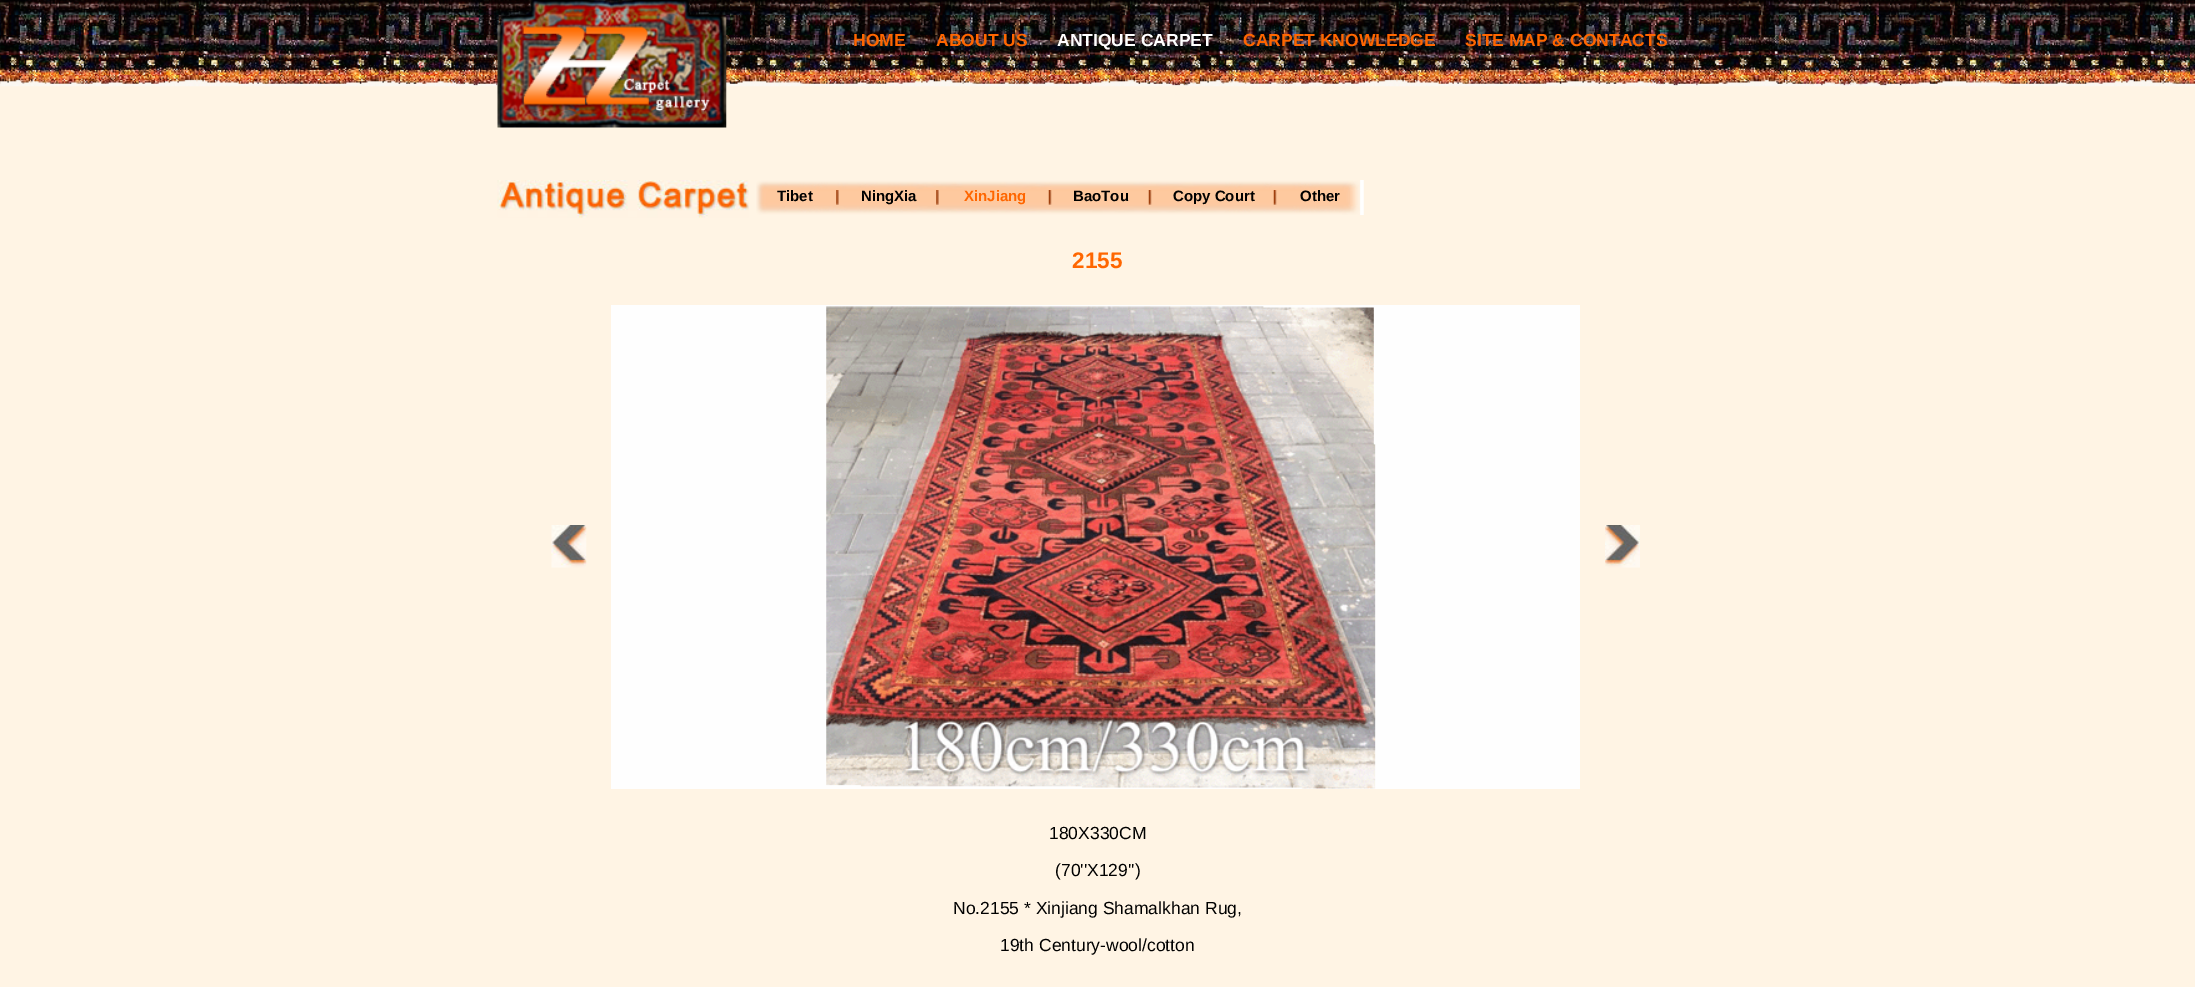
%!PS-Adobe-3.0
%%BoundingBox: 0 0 2195 987
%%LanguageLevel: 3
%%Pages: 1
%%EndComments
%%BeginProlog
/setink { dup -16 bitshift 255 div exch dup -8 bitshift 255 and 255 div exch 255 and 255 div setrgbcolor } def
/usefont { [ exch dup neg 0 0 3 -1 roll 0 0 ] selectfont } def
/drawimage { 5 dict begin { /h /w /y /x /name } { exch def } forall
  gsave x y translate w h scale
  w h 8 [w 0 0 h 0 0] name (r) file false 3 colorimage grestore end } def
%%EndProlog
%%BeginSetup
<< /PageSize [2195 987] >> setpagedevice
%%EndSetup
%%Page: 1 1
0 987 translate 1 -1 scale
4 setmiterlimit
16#FFF4E4 setink
0 0 2195 987 rectfill
(img1.raw) 0 0 2195 87 drawimage
(img2.raw) 497 0 230 128 drawimage
/LiberationSans-Bold 17.5 usefont
16#FF6600 setink
853 46 moveto (HOME) show
936 46 moveto (ABOUT US) show
16#FFFFFF setink
1057 46 moveto (ANTIQUE CARPET) show
16#FF6600 setink
1243 46 moveto (CARPET KNOWLEDGE) show
1465 46 moveto (SITE MAP & CONTACTS) show
(img3.raw) 497 180 252 38 drawimage
(img4.raw) 756 180 608 35 drawimage
(img5.raw) 836 190 3 15 drawimage
/LiberationSans-Bold 15 usefont
16#000000 setink
777 201 moveto (Tibet) show
(img5.raw) 936 190 3 15 drawimage
861 201 moveto (NingXia) show
(img6.raw) 1048 190 4 15 drawimage
16#FF6600 setink
964 201 moveto (XinJiang) show
(img6.raw) 1148 190 4 15 drawimage
16#000000 setink
1073 201 moveto (BaoTou) show
(img6.raw) 1273 190 4 15 drawimage
1173 201 moveto (Copy Court) show
1300 201 moveto (Other) show
/LiberationSans-Bold 22.5 usefont
16#FF6600 setink
1072 268 moveto (2155) show
(img7.raw) 551 525 36 43 drawimage
16#FEFEFE setink
611 305 969 484 rectfill
(img8.raw) 826 306 550 483 drawimage
(img9.raw) 1605 525 35 43 drawimage
/LiberationSans-Regular 17.5 usefont
16#000000 setink
[
    [(180X330CM) 1049 839]
    [(\(70''X129''\)) 1055 876]
    [(No.2155 * Xinjiang Shamalkhan Rug,) 953 914]
    [(19th Century-wool/cotton) 1000 951]
] { aload pop moveto show } forall
showpage
%%EOF
